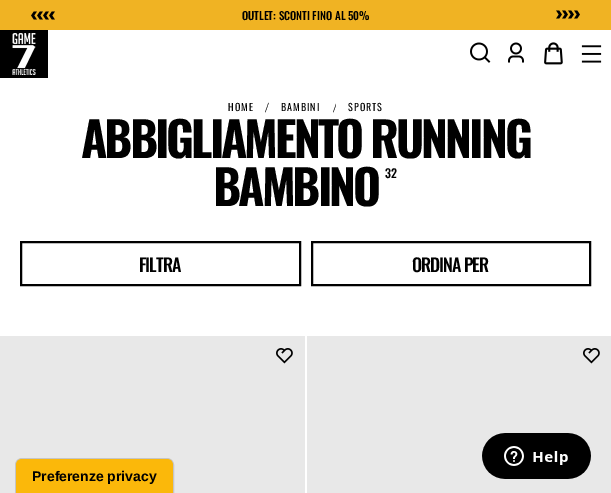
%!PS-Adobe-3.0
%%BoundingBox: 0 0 611 493
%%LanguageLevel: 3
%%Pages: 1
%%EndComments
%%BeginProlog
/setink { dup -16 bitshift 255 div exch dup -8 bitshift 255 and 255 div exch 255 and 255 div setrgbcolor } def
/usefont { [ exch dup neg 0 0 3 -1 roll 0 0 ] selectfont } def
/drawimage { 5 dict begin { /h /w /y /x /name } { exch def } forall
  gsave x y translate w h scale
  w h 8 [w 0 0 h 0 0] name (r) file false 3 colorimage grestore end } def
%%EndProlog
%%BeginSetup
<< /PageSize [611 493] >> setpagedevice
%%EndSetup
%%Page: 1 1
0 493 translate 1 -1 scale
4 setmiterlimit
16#FFFFFF setink
0 0 611 493 rectfill
16#F0B323 setink
0 0 611 30 rectfill
(img1.raw) 31 11 24 9 drawimage
/Oswald-Medium 11 usefont
16#000000 setink
242 20 moveto (OUTLET: SCONTI FINO AL 50%) show
(img2.raw) 556 10 24 9 drawimage
0 30 48 48 rectfill
(img3.raw) 12 33 24 42 drawimage
(img4.raw) 470 42 21 21 drawimage
(img5.raw) 508 42 16 21 drawimage
(img6.raw) 544 42 19 23 drawimage
(img7.raw) 581 45 21 18 drawimage
/Oswald-Regular 10 usefont
228 111 moveto 1 0 (HOME) ashow
/LiberationSerif-Regular 14 usefont
265 112 moveto (/) show
/Oswald-Regular 10 usefont
281 111 moveto 1 0 (BAMBINI) ashow
gsave
333 97 3 18 rectclip
/LiberationSerif-Regular 14 usefont
333 112 moveto (/) show
grestore
348 111 moveto 1 0 (SPORTS) ashow
/Oswald-Bold 48 usefont
81 158 moveto -3 0 (ABBIGLIAMENTO RUNNING) ashow
213 206 moveto -3 0 (BAMBINO) ashow
/Oswald-Medium 12 usefont
385 178 moveto (32) show
2 setlinewidth
21 242 279 43 rectstroke
/Oswald-Medium 18 usefont
139 272 moveto -1 0 (FILTRA) ashow
312 242 278 43 rectstroke
412 272 moveto -1 0 (ORDINA PER) ashow
(img8.raw) 0 336 305 157 drawimage
(img9.raw) 276 348 17 16 drawimage
16#E8E8E8 setink
307 336 304 157 rectfill
(img9.raw) 583 348 17 16 drawimage
16#C5C5C5 setink
1 setlinewidth
22 458.5 moveto 167 458.5 lineto 170.5 458.5 173.5 461.5 173.5 465 curveto 173.5 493.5 lineto 15.5 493.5 lineto 15.5 465 lineto 15.5 461.5 18.5 458.5 22 458.5 curveto closepath stroke
16#FBB80A setink
22 459 moveto 167 459 lineto 170.5 459 173 461.5 173 465 curveto 173 493 lineto 16 493 lineto 16 465 lineto 16 461.5 18.5 459 22 459 curveto closepath fill
/LiberationSans-Bold 14 usefont
16#000000 setink
32 481 moveto (Preferenze privacy) show
(img10.raw) 482 433 109 46 drawimage
showpage
%%EOF
